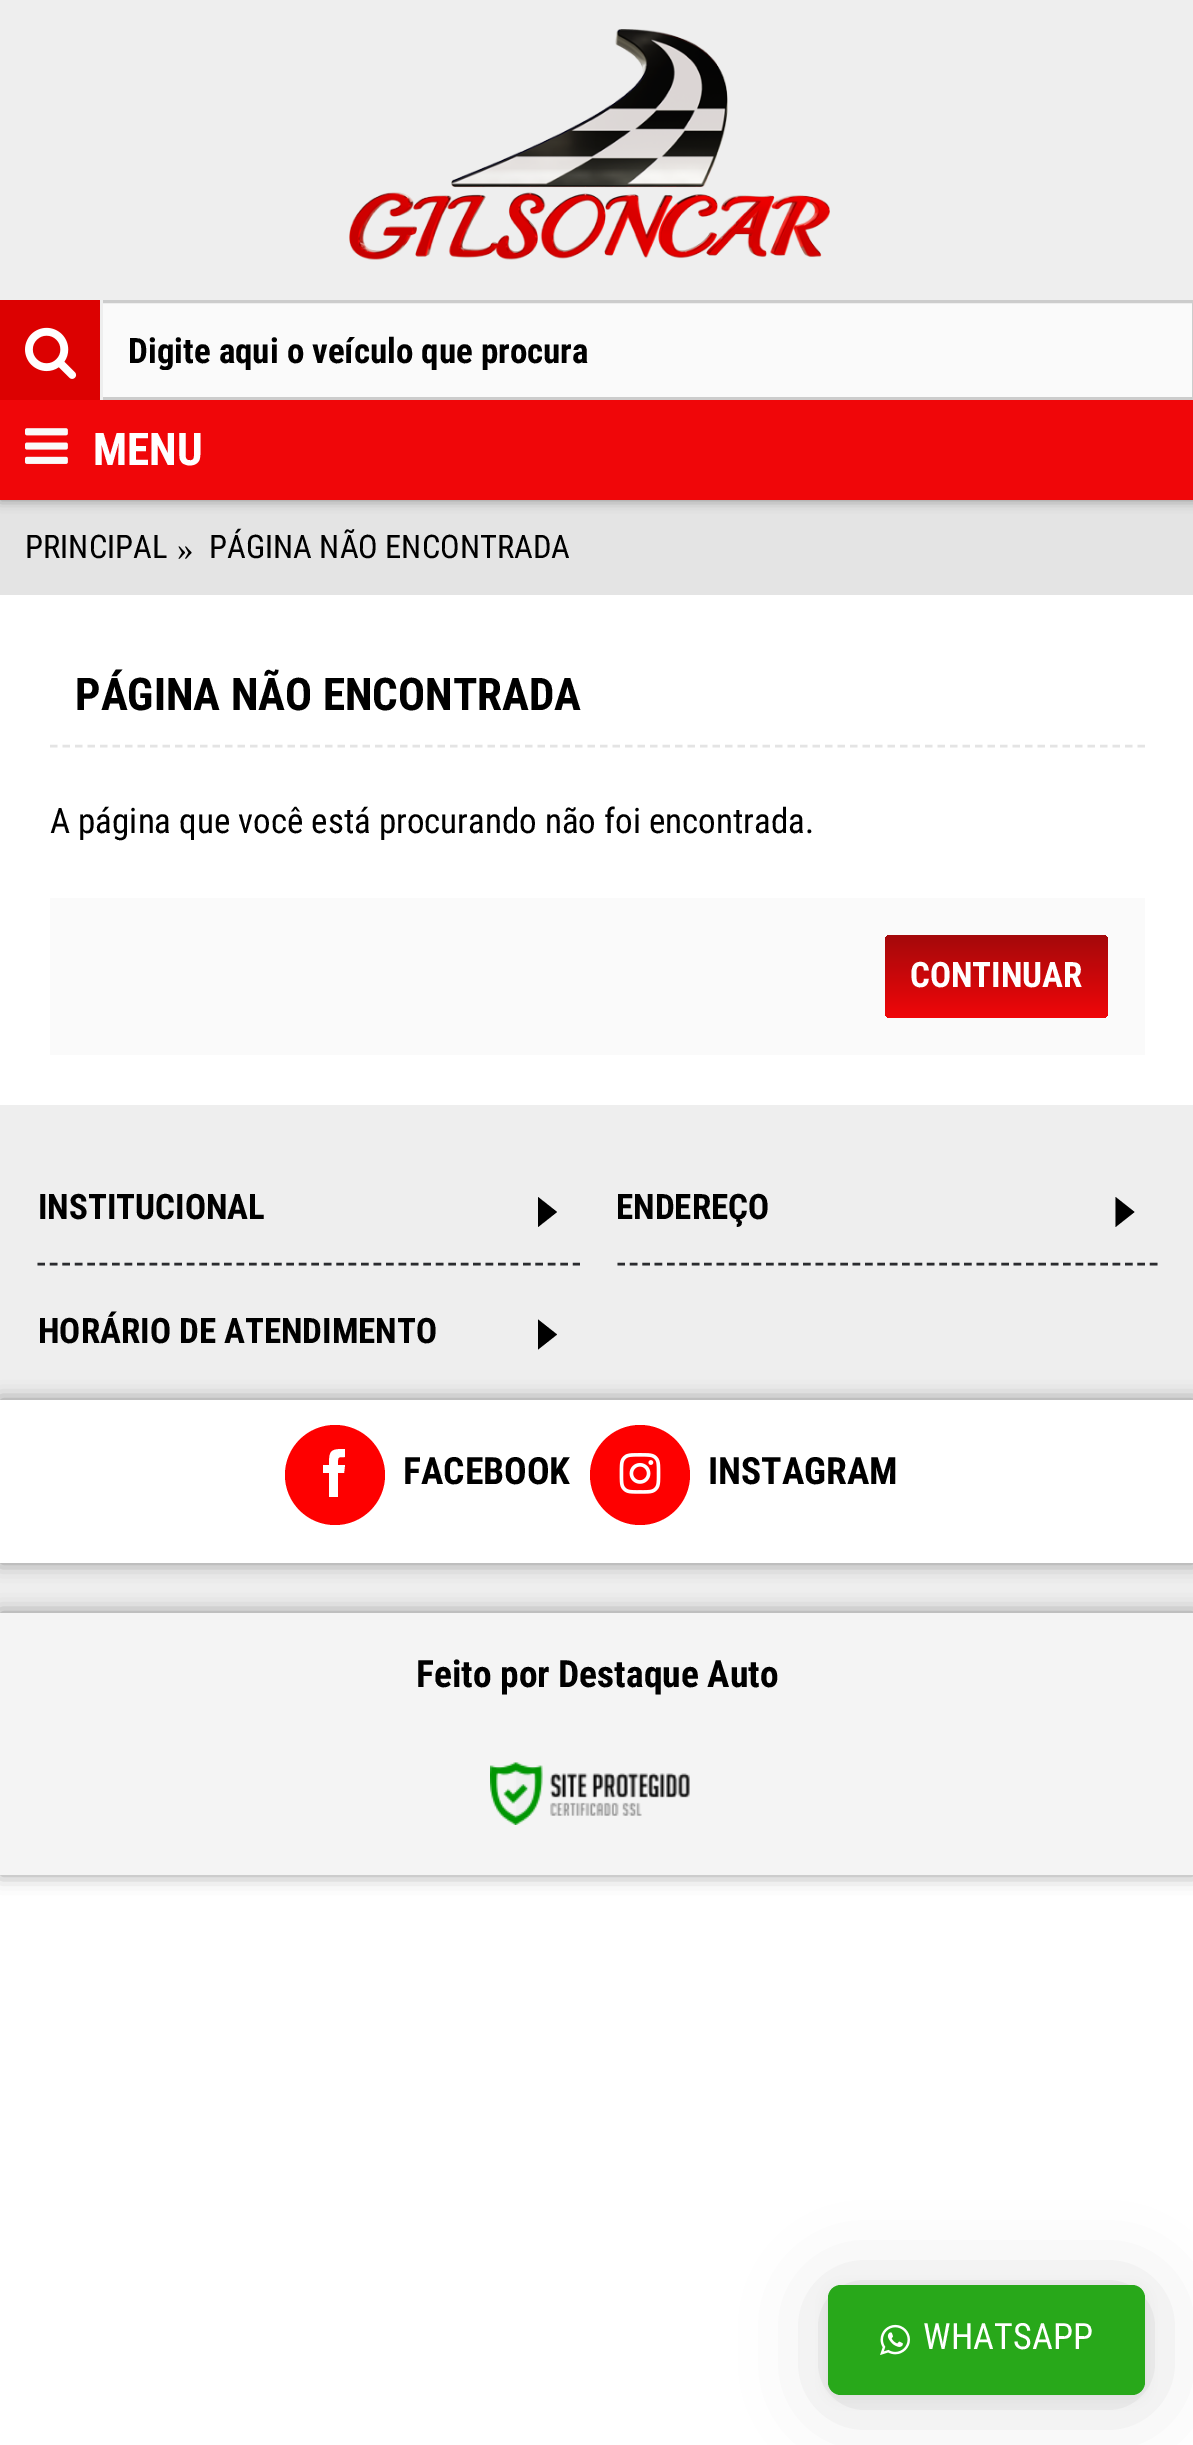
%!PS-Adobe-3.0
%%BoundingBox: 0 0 1193 2445
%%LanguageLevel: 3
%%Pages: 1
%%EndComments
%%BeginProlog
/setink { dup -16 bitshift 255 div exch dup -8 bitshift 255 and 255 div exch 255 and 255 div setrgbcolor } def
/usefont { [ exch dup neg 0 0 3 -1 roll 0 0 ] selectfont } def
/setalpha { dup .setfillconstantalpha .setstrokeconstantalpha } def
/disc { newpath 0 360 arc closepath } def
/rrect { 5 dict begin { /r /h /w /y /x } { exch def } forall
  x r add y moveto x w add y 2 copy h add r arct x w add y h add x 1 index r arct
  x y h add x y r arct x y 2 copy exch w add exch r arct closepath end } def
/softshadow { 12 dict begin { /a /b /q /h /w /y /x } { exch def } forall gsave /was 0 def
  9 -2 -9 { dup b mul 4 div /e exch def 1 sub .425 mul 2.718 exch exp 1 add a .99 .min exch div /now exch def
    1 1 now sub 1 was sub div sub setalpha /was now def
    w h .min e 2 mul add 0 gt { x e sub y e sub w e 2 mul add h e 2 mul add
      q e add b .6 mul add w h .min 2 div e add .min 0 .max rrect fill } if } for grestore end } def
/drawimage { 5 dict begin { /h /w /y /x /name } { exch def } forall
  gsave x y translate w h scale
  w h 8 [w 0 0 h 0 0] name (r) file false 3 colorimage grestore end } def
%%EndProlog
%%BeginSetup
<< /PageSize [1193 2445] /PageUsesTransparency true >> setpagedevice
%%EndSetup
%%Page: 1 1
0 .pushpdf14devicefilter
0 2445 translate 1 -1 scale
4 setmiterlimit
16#FFFFFF setink
0 0 1193 2445 rectfill
16#E4E4E4 setink
0 500 1193 95 rectfill
16#000000 setink
0 0 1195 500 0 6 0.4 softshadow
16#EEEEEE setink
0 0 1193 300 rectfill
(img1.raw) 349 29 481 231 drawimage
16#FAFAFA setink
103 303 1089 94 rectfill
16#CCCCCC setink
3 setlinewidth
1.5 301.5 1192 97 rectstroke
16#DC0101 setink
0 300 100 100 rectfill
16#EEEEEE setink
100 300 3 100 rectfill
(img2.raw) 25 327 52 52 drawimage
gsave
128 330 1065 40 rectclip
/RobotoCondensed-Bold 35 usefont
16#000000 setink
128 363 moveto (Digite aqui o veículo que procura) show
grestore
16#F00609 setink
0 400 1193 100 rectfill
(img3.raw) 25 428 43 36 drawimage
/RobotoCondensed-Bold 45 usefont
16#FFFFFF setink
93 465 moveto (MENU) show
/RobotoCondensed-Regular 32.5 usefont
16#000000 setink
25 558 moveto (PRINCIPAL) show
/LiberationSerif-Regular 32.5 usefont
177 560 moveto (») show
/RobotoCondensed-Regular 32.5 usefont
209 558 moveto (PÁGINA NÃO ENCONTRADA) show
16#E4E4E4 setink
2.5 setlinewidth
[7.5 5] 0 setdash
50 746 moveto 1145 746 lineto stroke
/RobotoCondensed-Bold 45 usefont
16#000000 setink
75 710 moveto (PÁGINA NÃO ENCONTRADA) show
/RobotoCondensed-Regular 35 usefont
50 833 moveto (A página que você está procurando não foi encontrada.) show
16#FAFAFA setink
50 898 1095 157 rectfill
gsave 885 935 223 83 5 rrect clip newpath
<< /ShadingType 2 /ColorSpace /DeviceRGB /Coords [996 1018 996 935] /Extend [true true] /Function << /FunctionType 2 /Domain [0 1] /C0 [0.941 0.024 0.035] /C1 [0.643 0.035 0.043] /N 1 >> >> shfill grestore
/RobotoCondensed-Bold 35 usefont
16#FFFFFF setink
910 987 moveto (CONTINUAR) show
16#EEEEEE setink
0 1105 1193 508 rectfill
16#2A2B2E setink
[7.5 4.95] 0 setdash
37.5 1264 moveto 580 1264 lineto stroke
16#000000 setink
38 1219 moveto (INSTITUCIONAL) show
538 1197 moveto 538 1227 lineto 557 1212 lineto closepath fill
16#2A2B2E setink
[7.5 4.88] 0 setdash
617.5 1264 moveto 1157.5 1264 lineto stroke
16#000000 setink
616 1219 moveto (ENDEREÇO) show
1115.5 1197 moveto 1115.5 1227 lineto 1134.5 1212 lineto closepath fill
38 1343 moveto (HORÁRIO DE ATENDIMENTO) show
538 1319.5 moveto 538 1349.5 lineto 557 1334.5 lineto closepath fill
0 1400 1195 163 0 9 0.4 softshadow
16#FFFFFF setink
0 1400 1193 163 rectfill
16#FE0000 setink
335 1475 50 disc fill
16#FFFFFF setink
338 1497 moveto 329 1497 lineto 329 1473 lineto 323 1473 lineto 323 1465 lineto 329 1465 lineto 329 1450 331 1449 345 1449 curveto 345 1457 lineto 337 1457 338 1457 338 1465 curveto 345 1465 lineto 344 1473 lineto 338 1473 lineto closepath fill
/RobotoCondensed-Bold 37.5 usefont
16#000000 setink
403 1484 moveto (FACEBOOK) show
16#FE0000 setink
640 1475 50 disc fill
(img4.raw) 619 1453 42 41 drawimage
16#000000 setink
708 1484 moveto (INSTAGRAM) show
0 1613 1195 262 0 9 0.4 softshadow
16#F4F4F4 setink
0 1613 1193 262 rectfill
16#000000 setink
416 1687 moveto (Feito por Destaque Auto) show
(img5.raw) 490 1762 200 63 drawimage
828 2290 317 110 13 40 0.16 softshadow
828 2288 317 110 13 7.5 0.06 softshadow
16#28A81A setink
828 2285 317 110 13 rrect fill
(img6.raw) 880 2324 30 31 drawimage
/RobotoCondensed-Regular 36.25 usefont
16#FFFFFF setink
923 2349 moveto (WHATSAPP) show
.poppdf14devicefilter showpage
%%EOF
